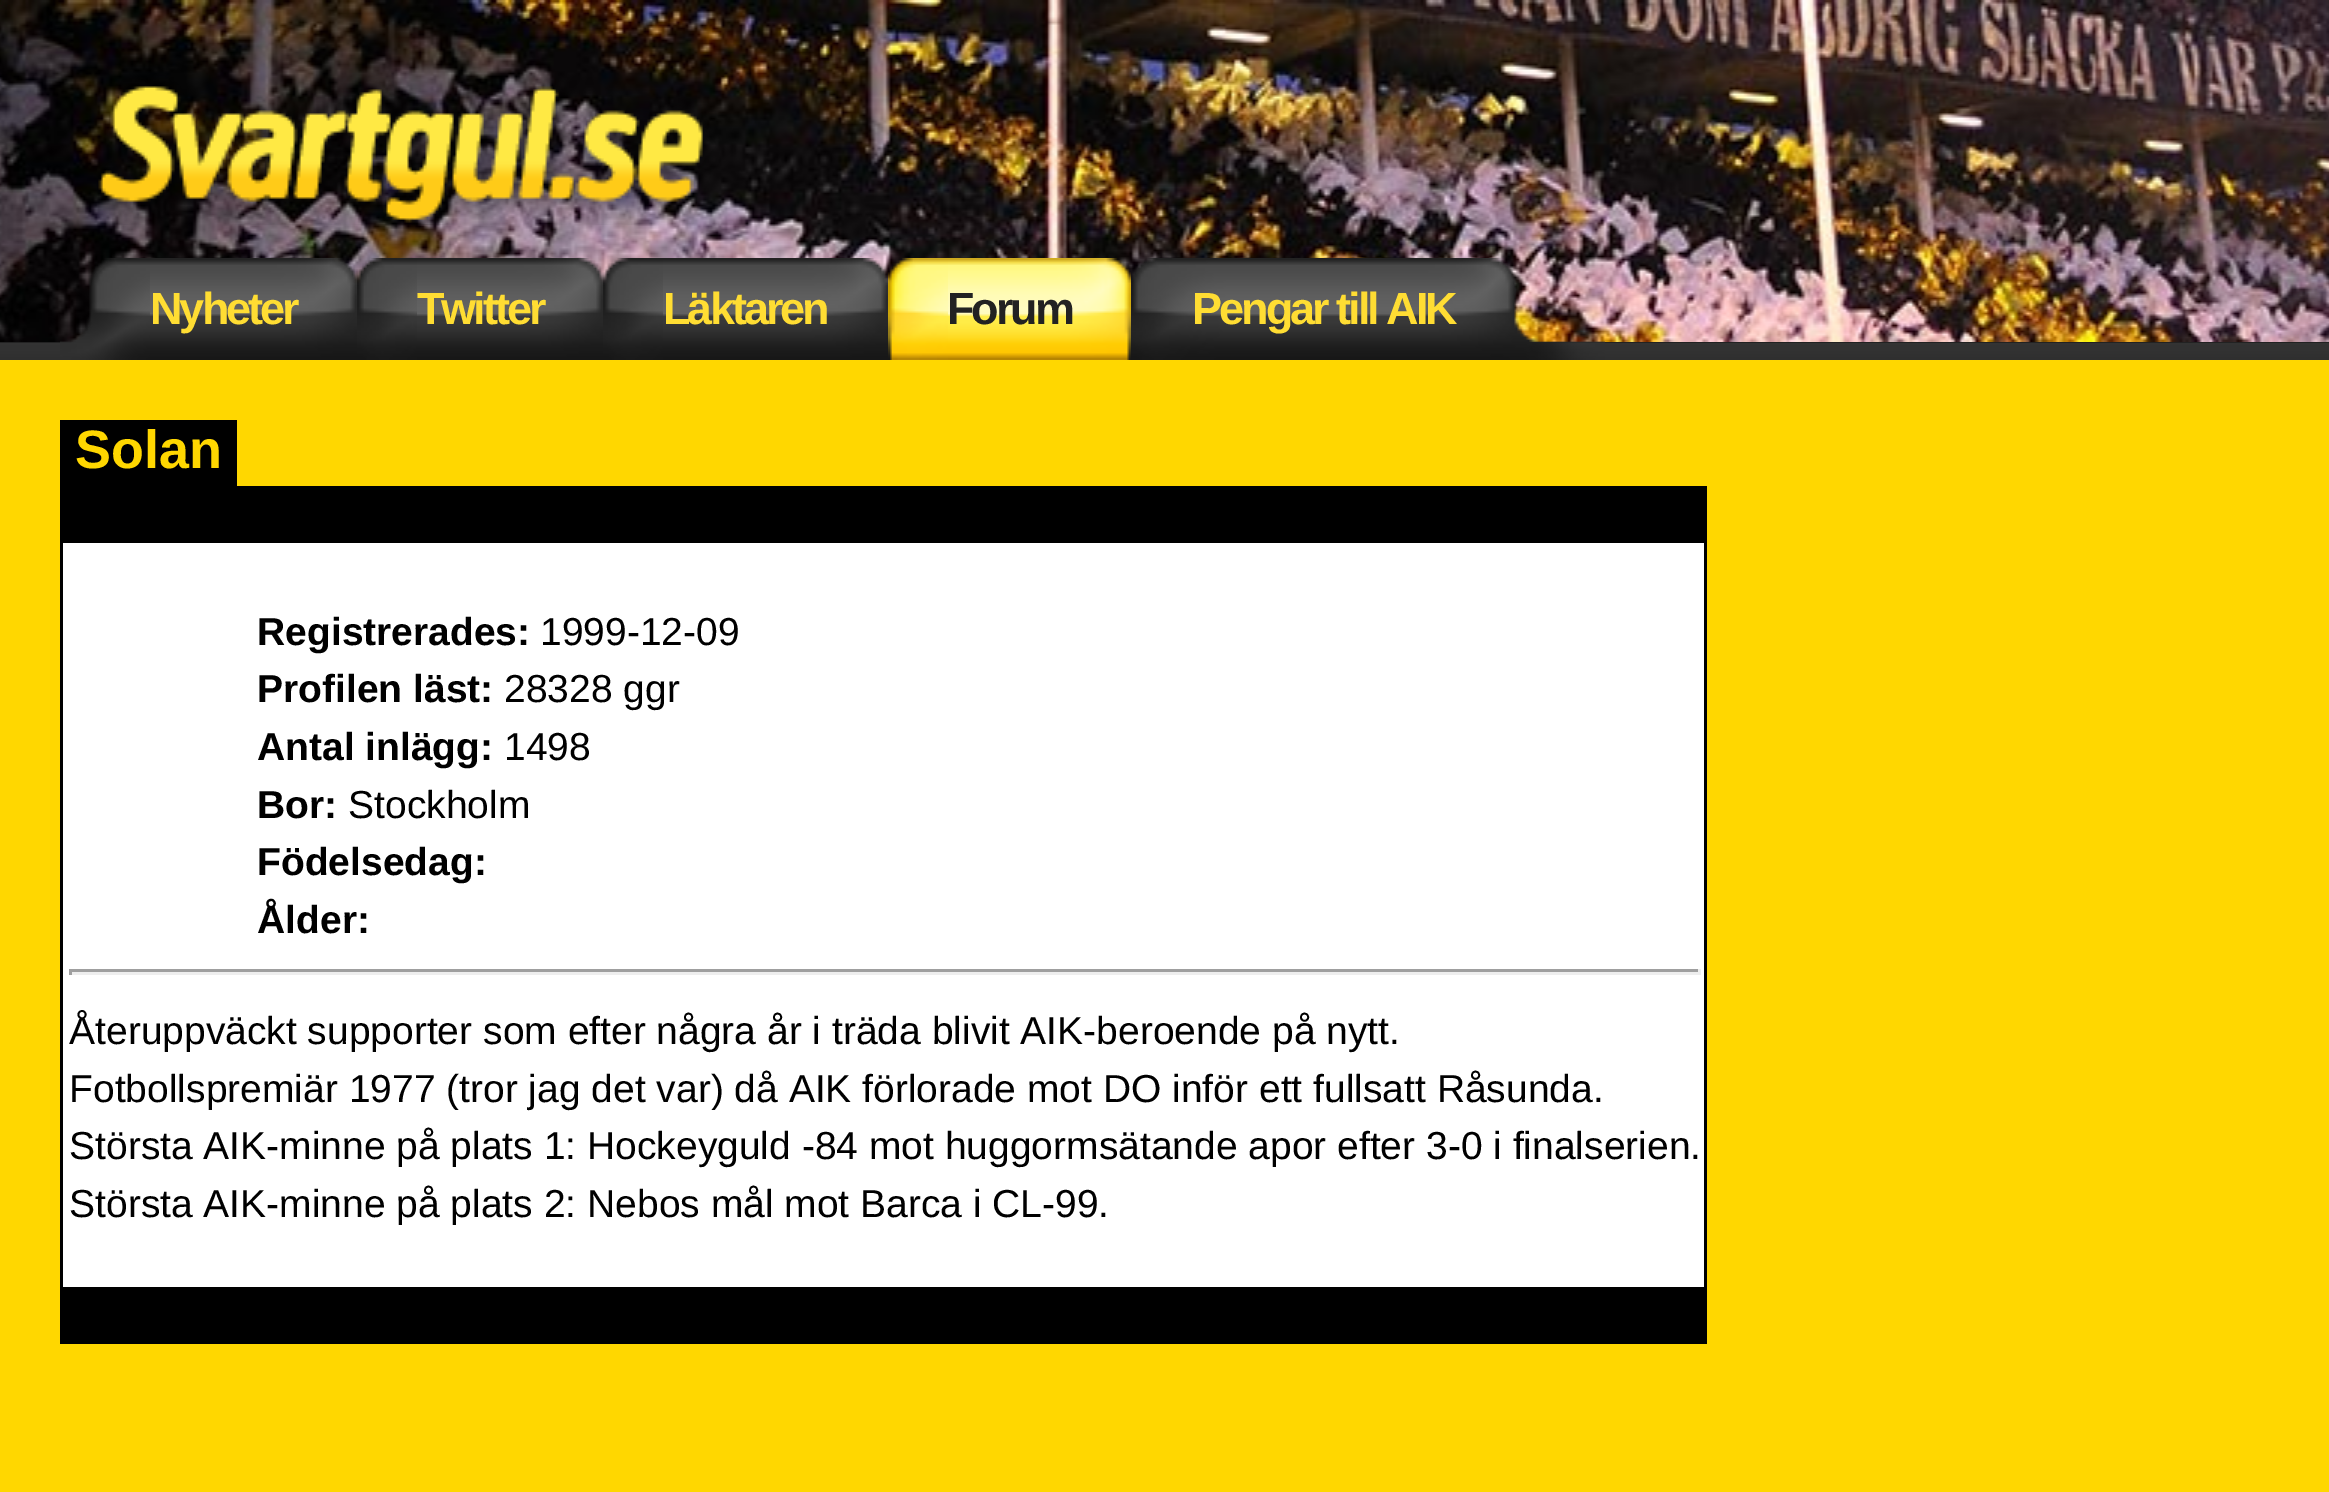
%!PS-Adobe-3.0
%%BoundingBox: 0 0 2329 1492
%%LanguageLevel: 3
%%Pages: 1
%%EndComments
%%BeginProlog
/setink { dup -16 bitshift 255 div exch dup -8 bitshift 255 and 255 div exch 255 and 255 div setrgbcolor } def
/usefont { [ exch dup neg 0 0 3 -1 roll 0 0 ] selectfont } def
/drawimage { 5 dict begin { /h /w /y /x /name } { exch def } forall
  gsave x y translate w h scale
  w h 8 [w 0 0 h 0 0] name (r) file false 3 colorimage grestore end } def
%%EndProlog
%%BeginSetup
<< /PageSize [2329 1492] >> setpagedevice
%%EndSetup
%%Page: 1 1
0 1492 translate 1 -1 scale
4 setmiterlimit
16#FFD700 setink
0 0 2329 1492 rectfill
(img1.raw) 0 342 2329 18 drawimage
(img2.raw) 0 0 2329 342 drawimage
(img3.raw) 98 73 658 152 drawimage
(img4.raw) 60 258 90 102 drawimage
(img5.raw) 150 258 207 102 drawimage
/LiberationSans-Bold 45 usefont
16#FFDD33 setink
150 324 moveto -3 0 (Nyheter) ashow
(img6.raw) 357 258 60 102 drawimage
(img7.raw) 417 258 186 102 drawimage
417 324 moveto -3 0 (Twitter) ashow
(img8.raw) 603 258 60 102 drawimage
(img9.raw) 663 258 225 102 drawimage
663 324 moveto -3 0 (Läktaren) ashow
(img10.raw) 888 258 60 102 drawimage
(img11.raw) 948 258 183 102 drawimage
16#222222 setink
947 324 moveto -3 0 (Forum) ashow
(img12.raw) 1131 258 270 102 drawimage
(img13.raw) 1401 258 204 102 drawimage
16#FFDD33 setink
1192 324 moveto -3 0 (Pengar till AIK) ashow
16#000000 setink
60 420 177 66 rectfill
/LiberationSans-Bold 54 usefont
16#FFD700 setink
75 468 moveto (Solan) show
[
    [60 486 1647 57 16#000000]
    [60 543 3 744 16#000000]
    [63 543 1641 57 16#FFFFFF]
    [1704 543 3 744 16#000000]
    [63 600 6 630 16#FFFFFF]
    [69 600 1635 630 16#FFFFFF]
] { aload pop setink rectfill } forall
/LiberationSans-Bold 39 usefont
16#000000 setink
257 645 moveto (Registrerades:) show
/LiberationSans-Regular 39 usefont
540 645 moveto (1999-12-09) show
/LiberationSans-Bold 39 usefont
257 702 moveto (Profilen läst:) show
/LiberationSans-Regular 39 usefont
504 702 moveto (28328 ggr) show
/LiberationSans-Bold 39 usefont
257 760 moveto (Antal inlägg:) show
/LiberationSans-Regular 39 usefont
504 760 moveto (1498) show
/LiberationSans-Bold 39 usefont
257 818 moveto (Bor:) show
/LiberationSans-Regular 39 usefont
348 818 moveto (Stockholm) show
/LiberationSans-Bold 39 usefont
257 875 moveto (Födelsedag:) show
257 933 moveto (Ålder:) show
[
    [69 969 1632 3 16#9F9F9F]
    [1698 969 3 6 16#EEEEEE]
    [69 972 1632 3 16#EEEEEE]
    [69 969 3 6 16#9F9F9F]
] { aload pop setink rectfill } forall
/LiberationSans-Regular 39 usefont
16#000000 setink
[
    [(Återuppväckt supporter som efter några år i träda blivit AIK-beroende på nytt.) 69 1044]
    [(Fotbollspremiär 1977 \(tror jag det var\) då AIK förlorade mot DO inför ett fullsatt Råsunda.) 69 1102]
    [(Största AIK-minne på plats 1: Hockeyguld -84 mot huggormsätande apor efter 3-0 i finalserien.) 69 1159]
    [(Största AIK-minne på plats 2: Nebos mål mot Barca i CL-99.) 69 1217]
] { aload pop moveto show } forall
16#FFFFFF setink
63 1230 1641 57 rectfill
16#000000 setink
60 1287 1647 57 rectfill
showpage
%%EOF
